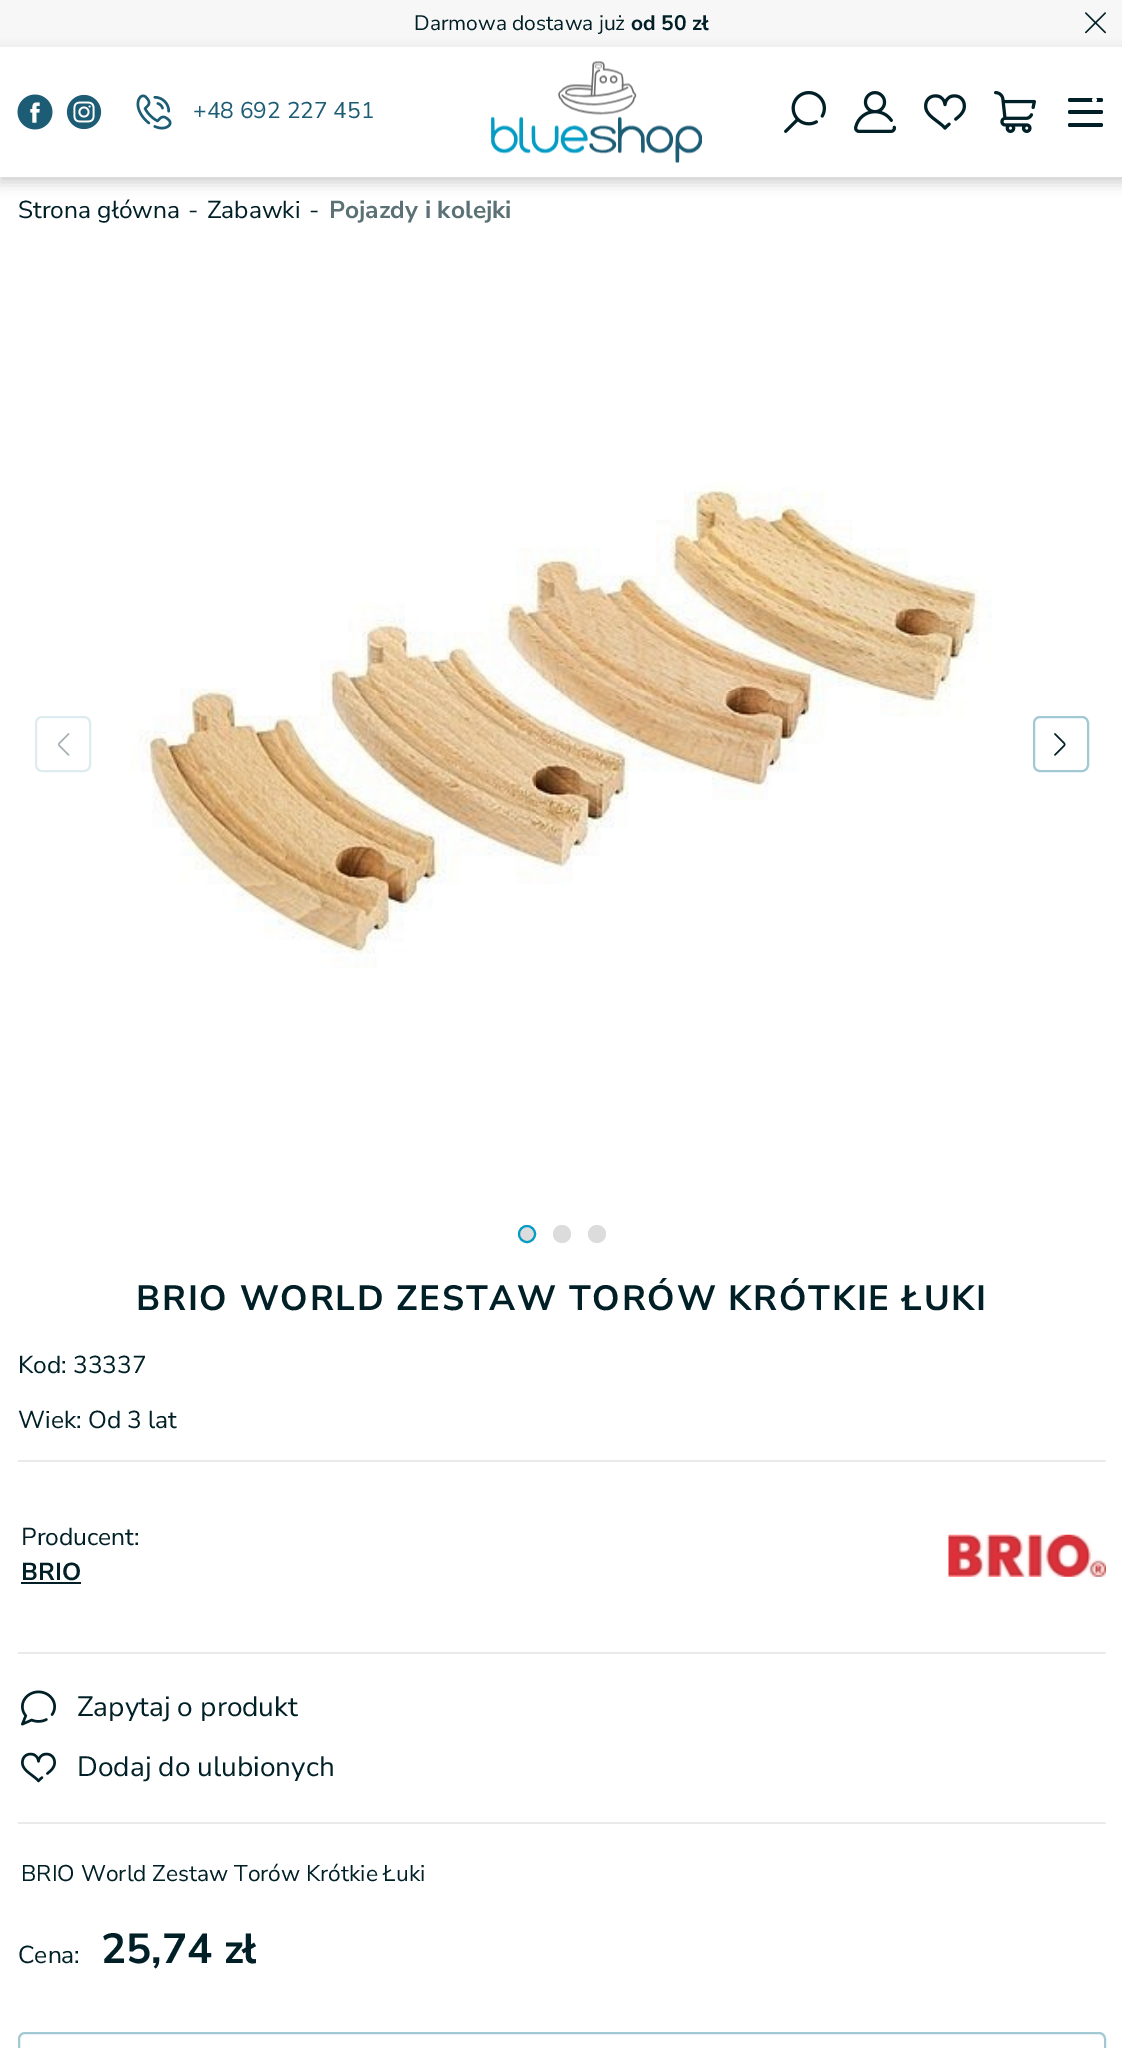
%!PS-Adobe-3.0
%%BoundingBox: 0 0 1122 2048
%%LanguageLevel: 3
%%Pages: 1
%%EndComments
%%BeginProlog
/setink { dup -16 bitshift 255 div exch dup -8 bitshift 255 and 255 div exch 255 and 255 div setrgbcolor } def
/usefont { [ exch dup neg 0 0 3 -1 roll 0 0 ] selectfont } def
/setalpha { dup .setfillconstantalpha .setstrokeconstantalpha } def
/disc { newpath 0 360 arc closepath } def
/rrect { 5 dict begin { /r /h /w /y /x } { exch def } forall
  x r add y moveto x w add y 2 copy h add r arct x w add y h add x 1 index r arct
  x y h add x y r arct x y 2 copy exch w add exch r arct closepath end } def
/softshadow { 12 dict begin { /a /b /q /h /w /y /x } { exch def } forall gsave /was 0 def
  9 -2 -9 { dup b mul 4 div /e exch def 1 sub .425 mul 2.718 exch exp 1 add a .99 .min exch div /now exch def
    1 1 now sub 1 was sub div sub setalpha /was now def
    w h .min e 2 mul add 0 gt { x e sub y e sub w e 2 mul add h e 2 mul add
      q e add b .6 mul add w h .min 2 div e add .min 0 .max rrect fill } if } for grestore end } def
/drawimage { 5 dict begin { /h /w /y /x /name } { exch def } forall
  gsave x y translate w h scale
  w h 8 [w 0 0 h 0 0] name (r) file false 3 colorimage grestore end } def
%%EndProlog
%%BeginSetup
<< /PageSize [1122 2048] /PageUsesTransparency true >> setpagedevice
%%EndSetup
%%Page: 1 1
0 .pushpdf14devicefilter
0 2048 translate 1 -1 scale
4 setmiterlimit
16#FFFFFF setink
0 0 1122 2048 rectfill
16#F7F7F7 setink
0 0 1122 47 rectfill
/NunitoSans-ExtraLight 21 usefont
16#001F26 setink
414 30 moveto (Darmowa dostawa już) show
/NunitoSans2-ExtraLight 21 usefont
631 30 moveto (od 50 zł) show
(img1.raw) 1085 12 21 22 drawimage
16#000000 setink
0 53 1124 129 0 7 0.2 softshadow
16#FFFFFF setink
0 47 1122 130 rectfill
(img2.raw) 17 94 36 36 drawimage
(img3.raw) 66 94 36 36 drawimage
(img4.raw) 136 94 36 36 drawimage
/NunitoSans-ExtraLight 22.75 usefont
16#1C5C74 setink
193 118 moveto (+48 692 227 451) show
(img5.raw) 491 61 212 102 drawimage
(img6.raw) 784 91 42 42 drawimage
(img7.raw) 854 91 42 42 drawimage
(img8.raw) 924 94 42 36 drawimage
(img9.raw) 994 91 42 42 drawimage
16#001F26 setink
1068 98 35 4 2 rrect fill
16#FFFFFF setink
1092 98 5 4 2 rrect fill
16#001F26 setink
1068 110 35 4 2 rrect fill
1068 123 35 4 2 rrect fill
/NunitoSans-ExtraLight 24.5 usefont
[
    [(Strona główna) 18 218]
    [(-) 188 218]
    [(Zabawki) 207 218]
    [(-) 309 218]
] { aload pop moveto show } forall
/NunitoSans2-ExtraLight 24.5 usefont
16#5C7176 setink
329 218 moveto (Pojazdy i kolejki) show
16#DEECF0 setink
2 setlinewidth
36 717 54 54 6 rrect stroke
(img10.raw) 58 733 12 23 drawimage
(img11.raw) 130 482 862 486 drawimage
16#A2C9D3 setink
1034 717 54 54 6 rrect stroke
(img12.raw) 1054 733 12 23 drawimage
16#DCDCDC setink
527 1234 8 disc gsave fill grestore
16#049CC4 setink
stroke
16#DCDCDC setink
562 1234 9 disc fill
597 1234 9 disc fill
gsave
18 1278 1088 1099 rectclip
/NunitoSans2-ExtraLight 35 usefont
16#001F26 setink
136 1310 moveto 1.75 0 (BRIO WORLD ZESTAW TORÓW KRÓTKIE ŁUKI) ashow
grestore
/NunitoSans-ExtraLight 24.5 usefont
16#001F26 setink
18 1373 moveto (Kod: 33337) show
18 1428 moveto (Wiek: Od 3 lat) show
16#EAEAEA setink
18 1460 1088 2 rectfill
18 1652 1088 2 rectfill
16#001F26 setink
21 1545 moveto (Producent:) show
/NunitoSans2-ExtraLight 24.5 usefont
21 1580 moveto (BRIO) show
21 1582 60 2 rectfill
(img13.raw) 948 1534 158 43 drawimage
16#EAEAEA setink
18 1822 1088 2 rectfill
(img14.raw) 21 1690 35 36 drawimage
/NunitoSans-ExtraLight 28 usefont
16#001F26 setink
77 1716 moveto (Zapytaj o produkt) show
(img15.raw) 21 1752 35 31 drawimage
77 1776 moveto (Dodaj do ulubionych) show
/NunitoSans-ExtraLight 22.75 usefont
21 1881 moveto (BRIO World Zestaw Torów Krótkie Łuki) show
/NunitoSans-ExtraLight 24.5 usefont
18 1963 moveto (Cena:) show
/NunitoSans2-ExtraLight 42 usefont
101 1963 moveto (25,74 zł) show
16#A2C9D3 setink
19 2033 1086 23 6 rrect stroke
.poppdf14devicefilter showpage
%%EOF
